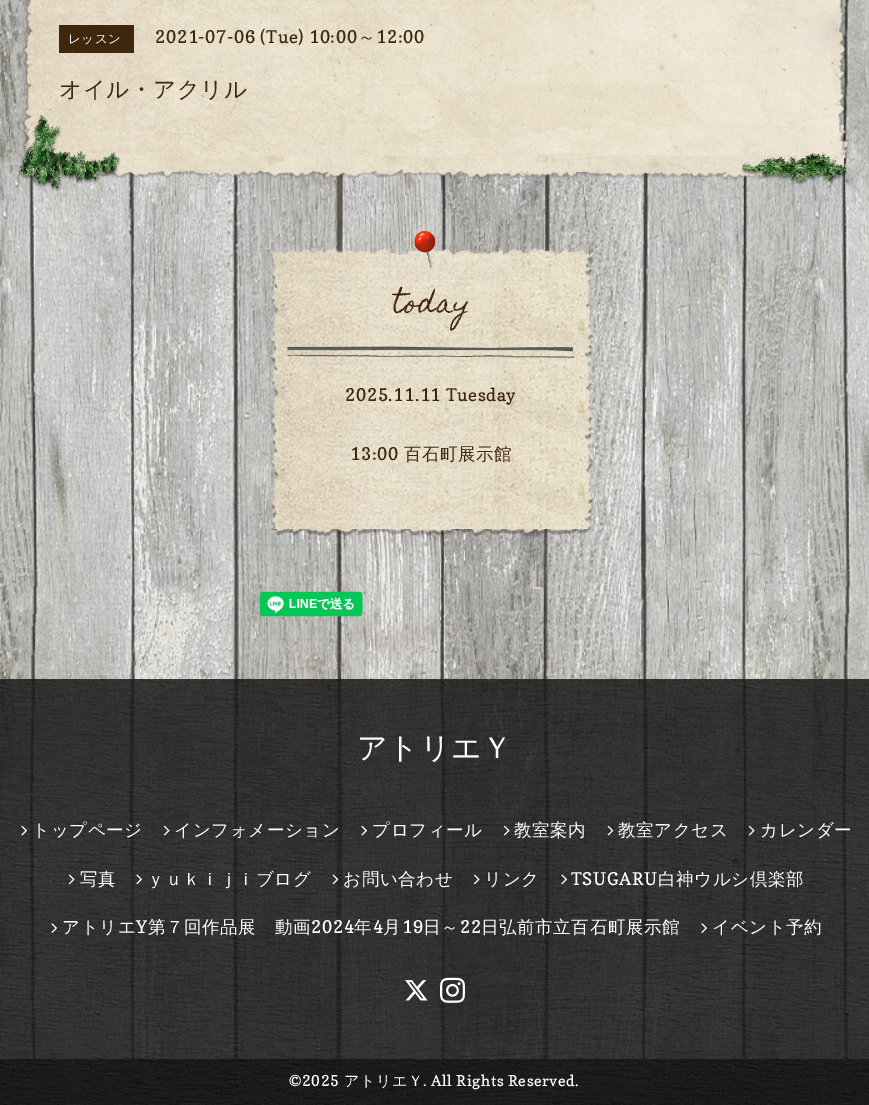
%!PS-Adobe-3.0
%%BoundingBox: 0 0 869 1105
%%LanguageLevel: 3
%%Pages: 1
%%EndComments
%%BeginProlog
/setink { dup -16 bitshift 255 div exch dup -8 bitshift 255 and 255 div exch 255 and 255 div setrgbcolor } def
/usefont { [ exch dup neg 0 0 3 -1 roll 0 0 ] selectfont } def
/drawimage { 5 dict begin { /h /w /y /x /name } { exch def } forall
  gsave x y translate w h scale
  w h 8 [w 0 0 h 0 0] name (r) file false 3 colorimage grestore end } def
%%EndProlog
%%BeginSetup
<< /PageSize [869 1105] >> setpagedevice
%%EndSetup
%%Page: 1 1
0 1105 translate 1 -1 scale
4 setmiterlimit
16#FFFFFF setink
0 0 869 1105 rectfill
(img1.raw) 0 0 869 1105 drawimage
(img2.raw) 22 125 827 55 drawimage
(img3.raw) 21 0 826 156 drawimage
16#3F260D setink
59 25 75 28 rectfill
/WenQuanYiZenHei-Medium 12.5 usefont
16#FFFFFF setink
68 43 moveto 0.6 0 (レッスン) ashow
/Copse-Regular 17.5 usefont
16#3F260D setink
155 43 moveto 0.6 0 (2021-07-06 \(Tue\) 10:00) ashow
/WenQuanYiZenHei-Medium 17.5 usefont
358 43 moveto 0.6 0 (～) ashow
/Copse-Regular 17.5 usefont
376 43 moveto 0.6 0 (12:00) ashow
/WenQuanYiZenHei-Medium 22.5 usefont
59 97 moveto 0.6 0 (オイル・アクリル) ashow
(img4.raw) 18 114 103 78 drawimage
(img5.raw) 741 153 107 33 drawimage
(img6.raw) 271 230 321 310 drawimage
(img7.raw) 271 267 322 262 drawimage
/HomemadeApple-Regular 25 usefont
393 312 moveto 0.6 0 (today) ashow
(img8.raw) 287 346 288 21 drawimage
/Copse-Regular 17.5 usefont
345 401 moveto 0.6 0 (2025.11.11 Tuesday) ashow
350 460 moveto 0.6 0 (13:00) ashow
/WenQuanYiZenHei-Medium 17.5 usefont
404 460 moveto 0.6 0 (百石町展示館) ashow
(img9.raw) 260 591 103 26 drawimage
(img10.raw) 0 679 869 380 drawimage
/WenQuanYiZenHei-Medium 30 usefont
16#FFFFFF setink
357 758 moveto 0.6 0 (アトリエＹ) ashow
(img11.raw) 21 825 6 11 drawimage
/WenQuanYiZenHei-Medium 17.5 usefont
32 836 moveto 0.6 0 (トップページ) ashow
(img12.raw) 163 825 7 11 drawimage
174 836 moveto 0.6 0 (インフォメーション) ashow
(img13.raw) 361 825 6 11 drawimage
372 836 moveto 0.6 0 (プロフィール) ashow
(img14.raw) 503 825 7 11 drawimage
514 836 moveto 0.6 0 (教室案内) ashow
(img15.raw) 607 825 7 11 drawimage
618 836 moveto 0.6 0 (教室アクセス) ashow
(img16.raw) 748 825 7 11 drawimage
760 836 moveto 0.6 0 (カレンダー) ashow
(img17.raw) 68 874 7 11 drawimage
80 885 moveto 0.6 0 (写真) ashow
(img18.raw) 136 874 6 11 drawimage
147 885 moveto 0.6 0 (ｙｕｋｉｊｉブログ) ashow
(img19.raw) 332 874 7 11 drawimage
343 885 moveto 0.6 0 (お問い合わせ) ashow
(img20.raw) 473 874 7 11 drawimage
484 885 moveto 0.6 0 (リンク) ashow
(img21.raw) 561 874 6 11 drawimage
/Copse-Regular 17.5 usefont
571 885 moveto 0.6 0 (TSUGARU) ashow
/WenQuanYiZenHei-Medium 17.5 usefont
658 885 moveto 0.6 0 (白神ウルシ倶楽部) ashow
(img22.raw) 51 923 6 10 drawimage
62 933 moveto 0.6 0 (アトリエ) ashow
/Copse-Regular 17.5 usefont
136 933 moveto 0.6 0 (Y) ashow
/WenQuanYiZenHei-Medium 17.5 usefont
148 933 moveto 0.6 0 (第７回作品展　動画) ashow
/Copse-Regular 17.5 usefont
311 933 moveto 0.6 0 (2024) ashow
/WenQuanYiZenHei-Medium 17.5 usefont
354 933 moveto 0.6 0 (年) ashow
/Copse-Regular 17.5 usefont
373 933 moveto 0.6 0 (4) ashow
/WenQuanYiZenHei-Medium 17.5 usefont
383 933 moveto 0.6 0 (月) ashow
/Copse-Regular 17.5 usefont
402 933 moveto 0.6 0 (19) ashow
/WenQuanYiZenHei-Medium 17.5 usefont
423 933 moveto 0.6 0 (日～) ashow
/Copse-Regular 17.5 usefont
460 933 moveto 0.6 0 (22) ashow
/WenQuanYiZenHei-Medium 17.5 usefont
481 933 moveto 0.6 0 (日弘前市立百石町展示館) ashow
(img23.raw) 701 923 6 10 drawimage
712 933 moveto 0.6 0 (イベント予約) ashow
(img24.raw) 405 980 23 21 drawimage
(img25.raw) 440 977 25 26 drawimage
(img26.raw) 0 1059 869 46 drawimage
/Copse-Regular 15 usefont
289 1086 moveto 0.6 0 (©2025) ashow
/WenQuanYiZenHei-Medium 15 usefont
344 1086 moveto 0.6 0 (アトリエＹ) ashow
/Copse-Regular 15 usefont
423 1086 moveto 0.6 0 (. All Rights Reserved.) ashow
showpage
%%EOF
